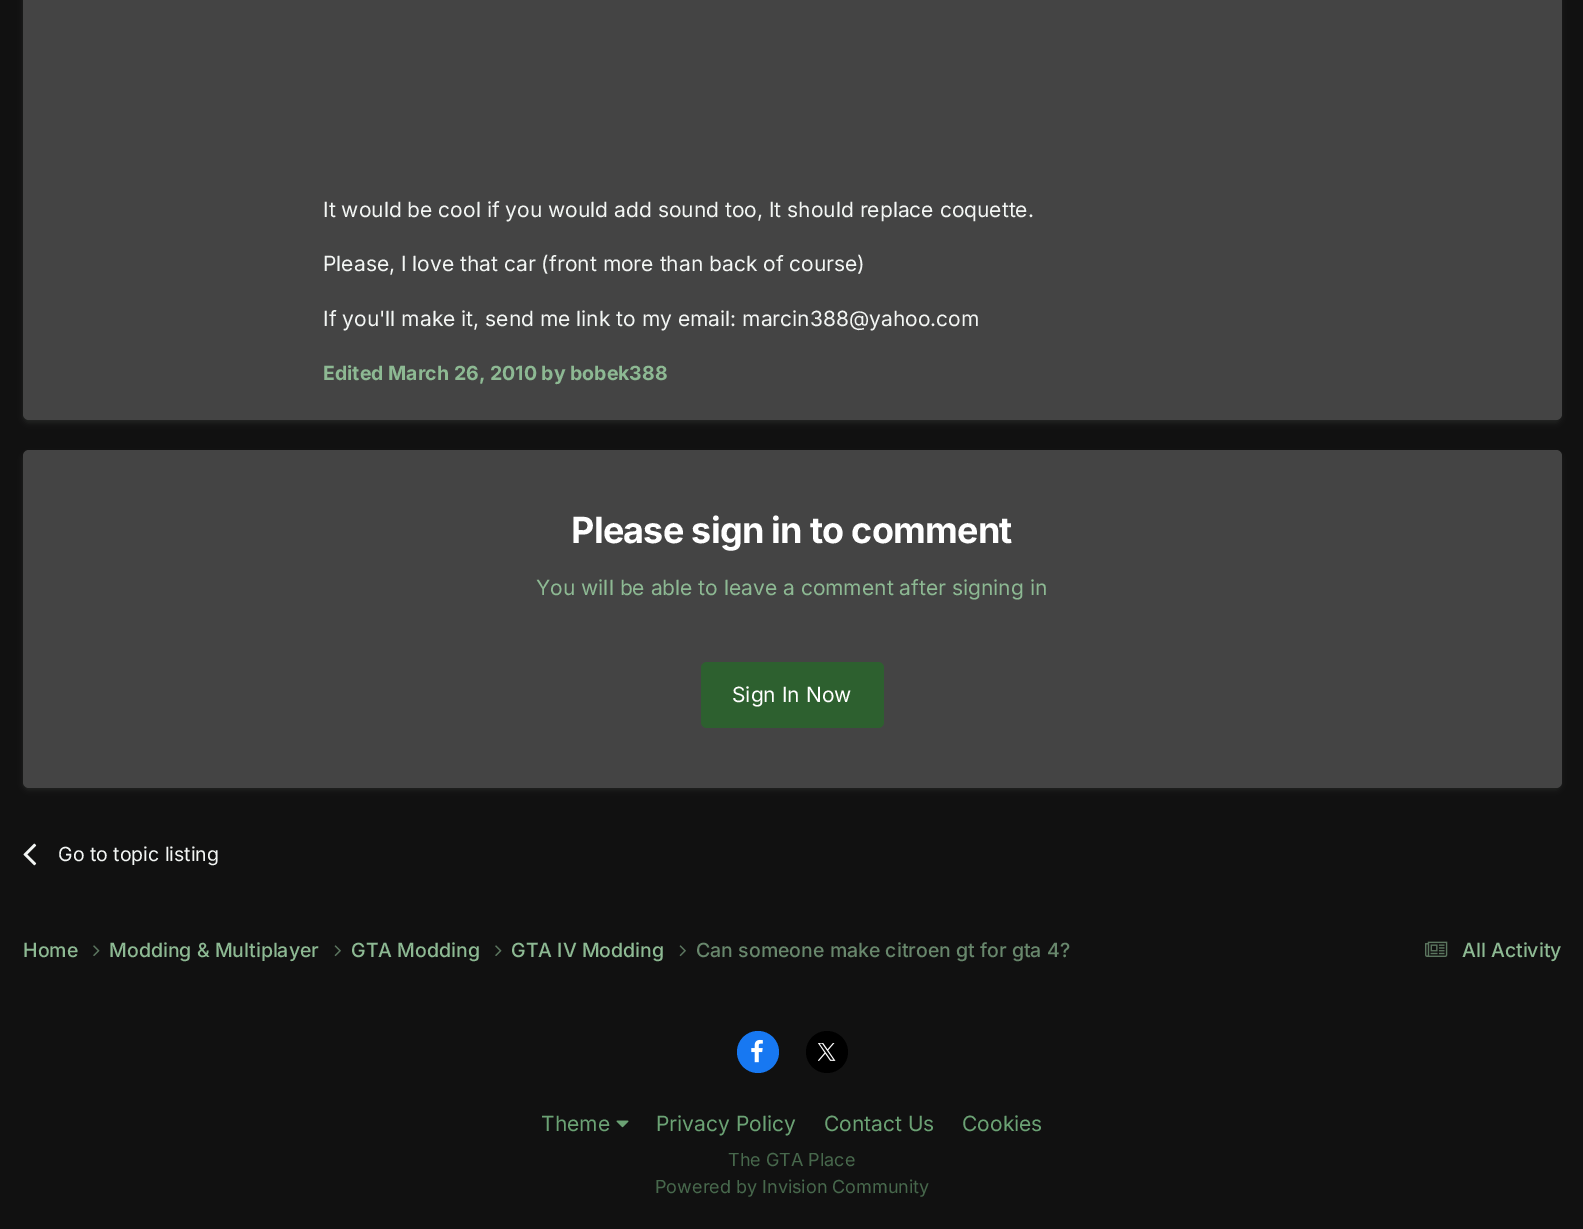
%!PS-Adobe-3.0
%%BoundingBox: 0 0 1583 1229
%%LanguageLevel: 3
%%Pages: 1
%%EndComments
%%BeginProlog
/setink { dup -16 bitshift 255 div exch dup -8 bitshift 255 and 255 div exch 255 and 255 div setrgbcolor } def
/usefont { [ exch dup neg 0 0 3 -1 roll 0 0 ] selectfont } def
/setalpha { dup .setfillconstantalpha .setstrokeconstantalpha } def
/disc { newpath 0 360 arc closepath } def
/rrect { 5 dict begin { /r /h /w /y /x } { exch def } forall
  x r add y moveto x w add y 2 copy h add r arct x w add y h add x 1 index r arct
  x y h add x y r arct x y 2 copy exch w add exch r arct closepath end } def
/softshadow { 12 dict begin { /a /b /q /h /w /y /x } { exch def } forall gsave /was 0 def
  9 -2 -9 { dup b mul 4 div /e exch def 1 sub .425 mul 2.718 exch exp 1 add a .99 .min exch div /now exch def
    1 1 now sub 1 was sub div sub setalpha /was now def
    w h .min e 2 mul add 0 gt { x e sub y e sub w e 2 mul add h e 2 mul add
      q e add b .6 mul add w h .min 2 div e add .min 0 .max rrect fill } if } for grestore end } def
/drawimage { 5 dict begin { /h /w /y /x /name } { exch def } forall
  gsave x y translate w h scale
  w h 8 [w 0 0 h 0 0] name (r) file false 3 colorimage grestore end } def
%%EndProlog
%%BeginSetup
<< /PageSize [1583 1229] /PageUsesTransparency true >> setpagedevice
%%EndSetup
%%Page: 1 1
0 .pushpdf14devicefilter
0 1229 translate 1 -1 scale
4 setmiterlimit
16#111111 setink
0 0 1583 1229 rectfill
16#EDF7EF setink
24 -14 1536 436 5 3 0.1 softshadow
16#444444 setink
23 -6 1539 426 6 rrect fill
/Inter-Regular 21 usefont
16#F3F6F4 setink
[
    [(It would be cool if you would add sound too, It should replace coquette.) 323 217]
    [(Please, I love that car \(front more than back of course\)) 323 271]
    [(If you'll make it, send me link to my email: marcin388@yahoo.com) 323 326]
] { aload pop moveto show } forall
/Inter-Bold 19.5 usefont
16#8DB993 setink
323 380 moveto (Edited March 26, 2010 by bobek388) show
16#EDF7EF setink
24 455 1536 334 5 3 0.1 softshadow
16#444444 setink
23 450 1539 338 6 rrect fill
/Inter-Bold 36 usefont
16#FFFFFF setink
571 543 moveto -0.75 0 (Please sign in to comment) ashow
/Inter-Regular 21 usefont
16#8DB993 setink
536 595 moveto (You will be able to leave a comment after signing in) show
16#2D602F setink
701 662 183 66 6 rrect fill
16#FFFFFF setink
732 702 moveto (Sign In Now) show
(img1.raw) 23 843 14 23 drawimage
/Inter-Regular 19.5 usefont
16#F3F6F4 setink
58 861 moveto (Go to topic listing) show
/Inter-Medium 19.5 usefont
16#8DB993 setink
23 957 moveto (Home) show
(img2.raw) 93 945 7 11 drawimage
109 957 moveto (Modding & Multiplayer) show
(img3.raw) 334 945 7 12 drawimage
351 957 moveto (GTA Modding) show
(img2.raw) 495 945 7 11 drawimage
511 957 moveto (GTA IV Modding) show
(img3.raw) 679 945 7 12 drawimage
16#68876C setink
696 957 moveto (Can someone make citroen gt for gta 4?) show
(img4.raw) 1425 941 23 16 drawimage
16#8DB993 setink
1462 957 moveto (All Activity) show
16#1778F2 setink
758 1052 21 disc fill
(img5.raw) 751 1039 12 24 drawimage
16#000000 setink
827 1052 21 disc fill
(img6.raw) 818 1043 18 18 drawimage
/Inter-Regular 21 usefont
16#6BA274 setink
541 1131 moveto (Theme) show
(img7.raw) 616 1120 13 8 drawimage
[
    [(Privacy Policy) 656 1131]
    [(Contact Us) 824 1131]
    [(Cookies) 962 1131]
] { aload pop moveto show } forall
/Inter-Regular 18 usefont
16#47684C setink
728 1166 moveto (The GTA Place) show
655 1193 moveto (Powered by Invision Community) show
.poppdf14devicefilter showpage
%%EOF
